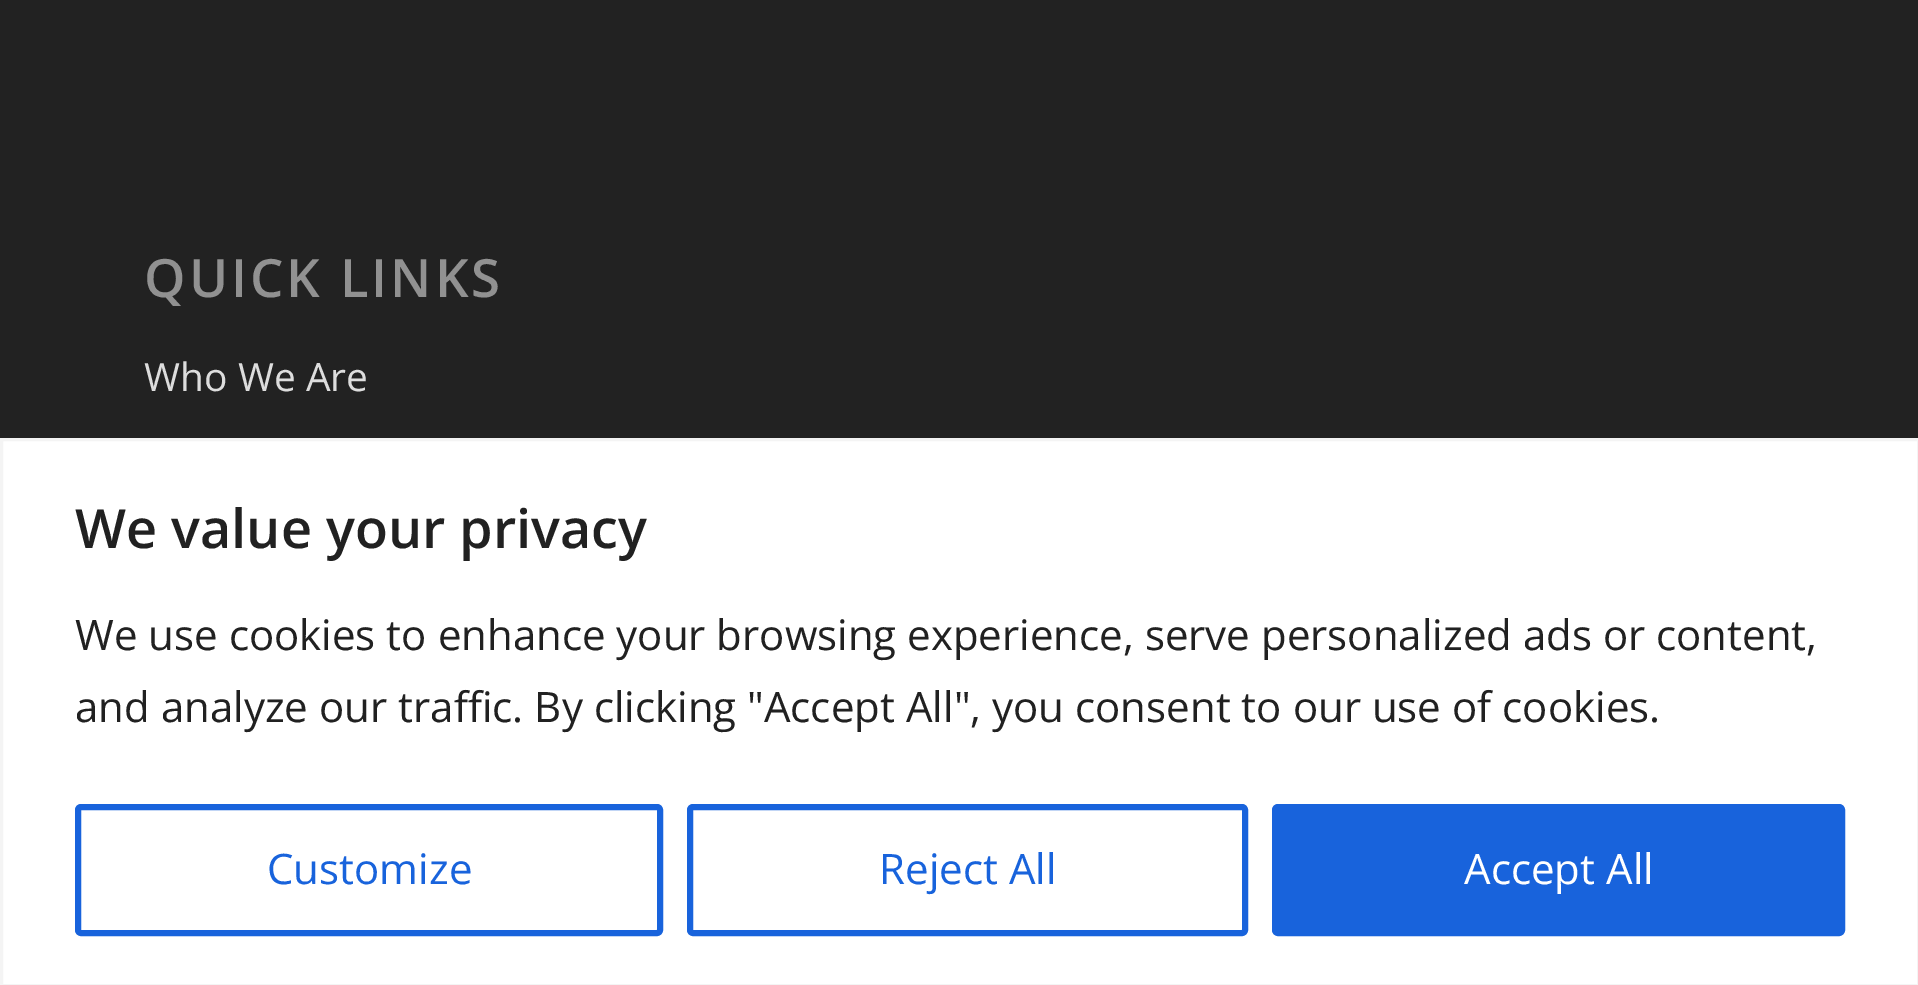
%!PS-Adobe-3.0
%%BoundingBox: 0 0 1918 985
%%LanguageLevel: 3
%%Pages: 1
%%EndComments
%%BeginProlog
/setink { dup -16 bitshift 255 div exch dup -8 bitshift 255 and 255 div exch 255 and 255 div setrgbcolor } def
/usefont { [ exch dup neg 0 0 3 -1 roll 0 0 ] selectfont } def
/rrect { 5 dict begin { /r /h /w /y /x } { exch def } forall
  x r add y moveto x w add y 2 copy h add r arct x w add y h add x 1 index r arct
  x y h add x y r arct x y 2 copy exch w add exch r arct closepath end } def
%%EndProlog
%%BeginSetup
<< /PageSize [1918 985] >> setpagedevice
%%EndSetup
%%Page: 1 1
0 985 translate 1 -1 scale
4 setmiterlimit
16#222222 setink
0 0 1918 985 rectfill
/OpenSans-SemiBold 52.75 usefont
16#919191 setink
144 297 moveto 3 0 (QUICK LINKS) ashow
/OpenSans-Regular 39 usefont
16#DDDDDD setink
144 391 moveto (Who We Are) show
16#FFFFFF setink
1.5 439.5 moveto 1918.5 439.5 lineto 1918.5 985.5 lineto 1.5 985.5 lineto closepath gsave fill grestore
16#F4F4F4 setink
3 setlinewidth
stroke
/OpenSans-SemiBold 54 usefont
16#212121 setink
75 548 moveto (We value your privacy) show
/OpenSans-Regular 42 usefont
75 650 moveto (We use cookies to enhance your browsing experience, serve personalized ads or content,) show
75 722 moveto (and analyze our traffic. By clicking "Accept All", you consent to our use of cookies.) show
16#1863DC setink
6 setlinewidth
78 807 582 126 3 rrect stroke
267 884 moveto (Customize) show
690 807 555 126 3 rrect stroke
879 884 moveto (Reject All) show
1275 807 567 126 3 rrect gsave fill grestore
stroke
16#FFFFFF setink
1464 884 moveto (Accept All) show
showpage
%%EOF
